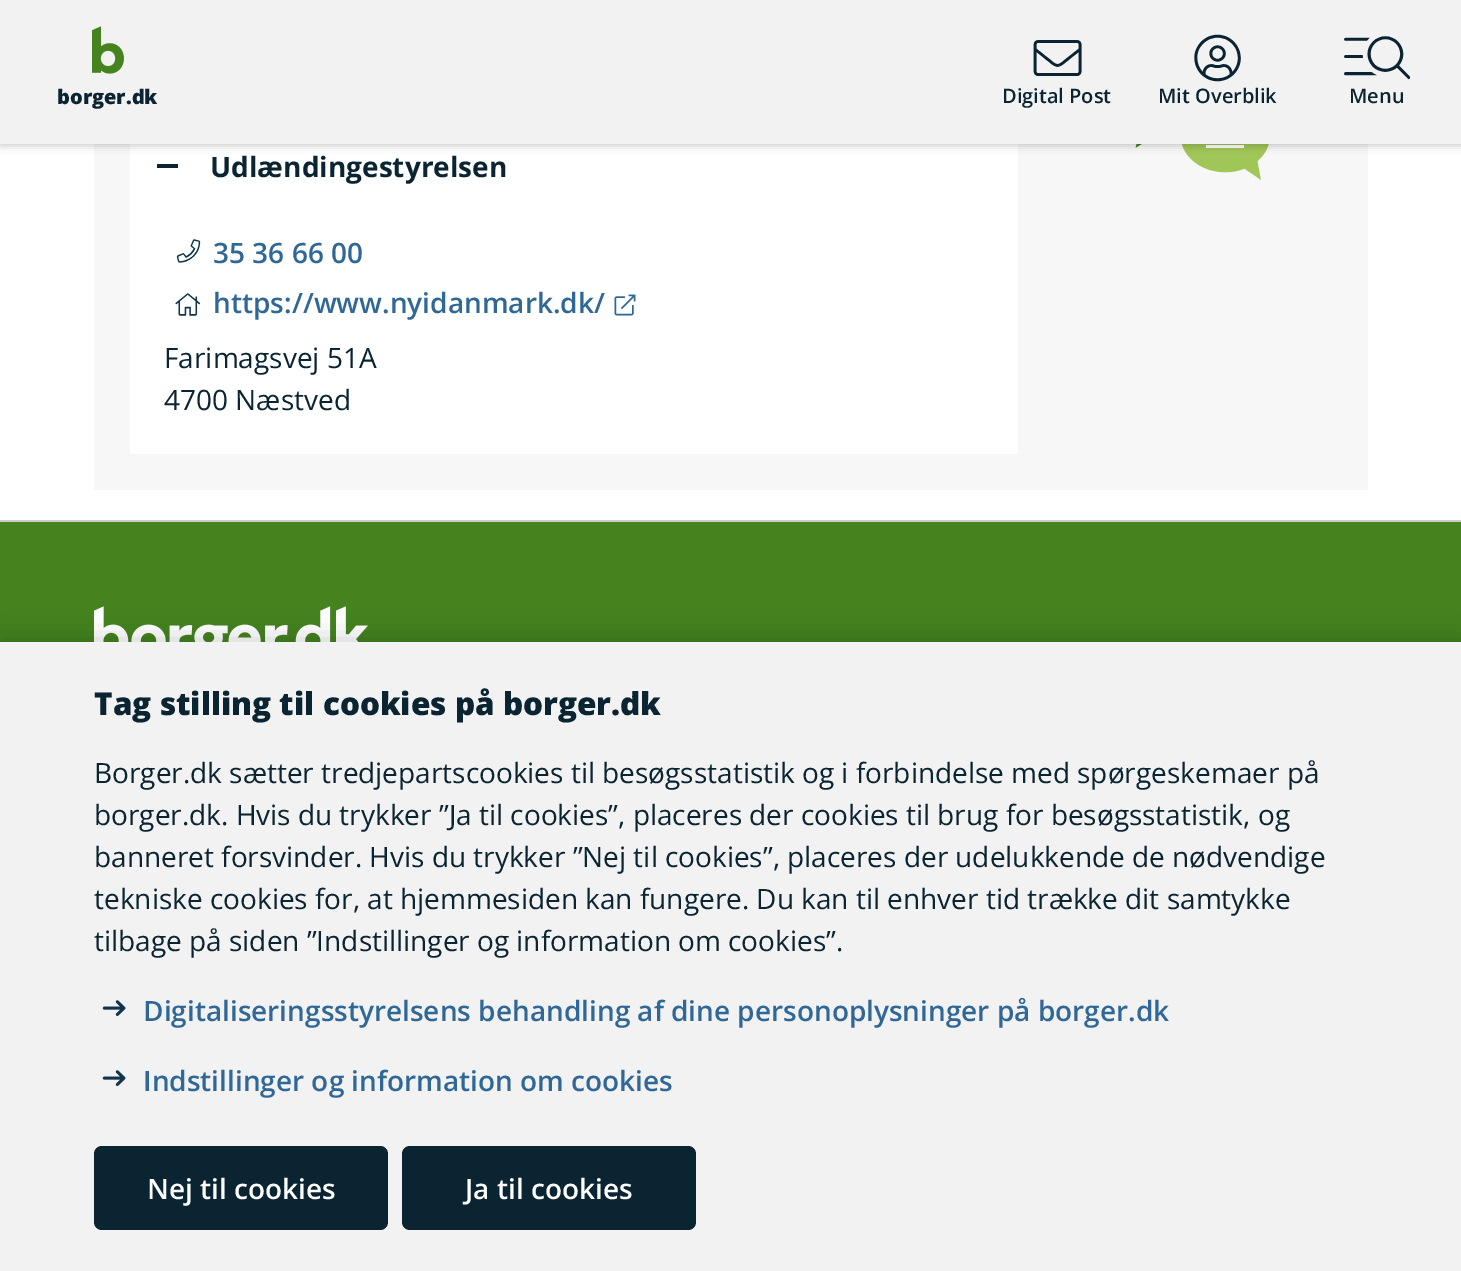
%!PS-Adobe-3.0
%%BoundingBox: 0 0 1461 1271
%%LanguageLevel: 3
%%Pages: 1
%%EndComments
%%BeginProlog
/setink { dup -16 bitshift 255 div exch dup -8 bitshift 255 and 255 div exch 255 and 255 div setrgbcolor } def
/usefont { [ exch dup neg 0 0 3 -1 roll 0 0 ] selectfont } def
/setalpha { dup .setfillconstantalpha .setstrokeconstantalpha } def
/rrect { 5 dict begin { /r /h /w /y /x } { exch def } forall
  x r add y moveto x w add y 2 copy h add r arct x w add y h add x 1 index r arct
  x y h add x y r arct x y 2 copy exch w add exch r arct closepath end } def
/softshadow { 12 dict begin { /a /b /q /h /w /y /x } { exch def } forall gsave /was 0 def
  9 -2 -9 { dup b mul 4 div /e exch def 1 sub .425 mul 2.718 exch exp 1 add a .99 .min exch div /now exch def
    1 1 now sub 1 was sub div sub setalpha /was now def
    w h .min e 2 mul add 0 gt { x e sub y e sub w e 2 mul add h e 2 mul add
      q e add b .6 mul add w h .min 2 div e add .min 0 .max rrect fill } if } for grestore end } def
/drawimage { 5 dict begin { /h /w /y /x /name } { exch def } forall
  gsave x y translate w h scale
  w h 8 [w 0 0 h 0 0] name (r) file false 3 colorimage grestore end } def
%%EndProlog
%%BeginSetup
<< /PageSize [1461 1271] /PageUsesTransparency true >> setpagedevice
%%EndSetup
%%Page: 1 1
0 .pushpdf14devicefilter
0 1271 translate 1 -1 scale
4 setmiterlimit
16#FFFFFF setink
0 0 1461 1271 rectfill
16#F7F7F7 setink
94 144 1274 346 rectfill
16#FFFFFF setink
130 144 888 310 rectfill
(img8.raw) 1135 144 134 36 drawimage
16#000000 setink
0 2 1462 144 0 4 0.2 softshadow
16#F2F2F2 setink
0 0 1461 144 rectfill
(img1.raw) 92 26 32 48 drawimage
/OpenSans-ExtraBold 20 usefont
16#0B2432 setink
57 104 moveto (borger.dk) show
(img2.raw) 1033 40 49 36 drawimage
/OpenSans-SemiBold 20 usefont
1002 103 moveto (Digital Post) show
(img3.raw) 1194 34 47 48 drawimage
1158 103 moveto (Mit Overblik) show
(img4.raw) 1344 36 66 44 drawimage
1349 103 moveto (Menu) show
157 164 21 4 rectfill
/OpenSans-Bold 28 usefont
210 177 moveto (Udlændingestyrelsen) show
(img5.raw) 176 239 25 24 drawimage
/OpenSans-SemiBold 28 usefont
16#2F6796 setink
213 263 moveto (35 36 66 00) show
(img6.raw) 175 293 26 23 drawimage
213 313 moveto (https://www.nyidanmark.dk/) show
(img7.raw) 614 294 22 22 drawimage
/OpenSans-Regular 28 usefont
16#0B2432 setink
164 368 moveto (Farimagsvej 51A) show
164 410 moveto (4700 Næstved) show
16#44831E setink
0 522 1461 120 rectfill
16#CCCCCC setink
0 520 1461 2 rectfill
(img9.raw) 94 606 274 36 drawimage
16#000000 setink
0 640 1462 630 0 13 0.2 softshadow
16#F2F2F2 setink
0 642 1461 629 rectfill
/OpenSans-ExtraBold 31.5 usefont
16#0B2432 setink
94 715 moveto (Tag stilling til cookies på borger.dk) show
/OpenSans-Regular 28 usefont
[
    [(Borger.dk sætter tredjepartscookies til besøgsstatistik og i forbindelse med spørgeskemaer på) 94 783]
    [(borger.dk. Hvis du trykker ”Ja til cookies”, placeres der cookies til brug for besøgsstatistik, og) 94 825]
    [(banneret forsvinder. Hvis du trykker ”Nej til cookies”, placeres der udelukkende de nødvendige) 94 867]
    [(tekniske cookies for, at hjemmesiden kan fungere. Du kan til enhver tid trække dit samtykke) 94 909]
    [(tilbage på siden ”Indstillinger og information om cookies”.) 94 951]
] { aload pop moveto show } forall
(img10.raw) 102 1000 24 16 drawimage
/OpenSans-SemiBold 28 usefont
16#2F6796 setink
143 1021 moveto (Digitaliseringsstyrelsens behandling af dine personoplysninger på borger.dk) show
(img10.raw) 102 1070 24 16 drawimage
143 1091 moveto (Indstillinger og information om cookies) show
16#0B2432 setink
94 1146 294 84 8 rrect fill
16#FFFFFF setink
147 1199 moveto (Nej til cookies) show
16#0B2432 setink
402 1146 294 84 8 rrect fill
16#FFFFFF setink
465 1199 moveto (Ja til cookies) show
.poppdf14devicefilter showpage
%%EOF
